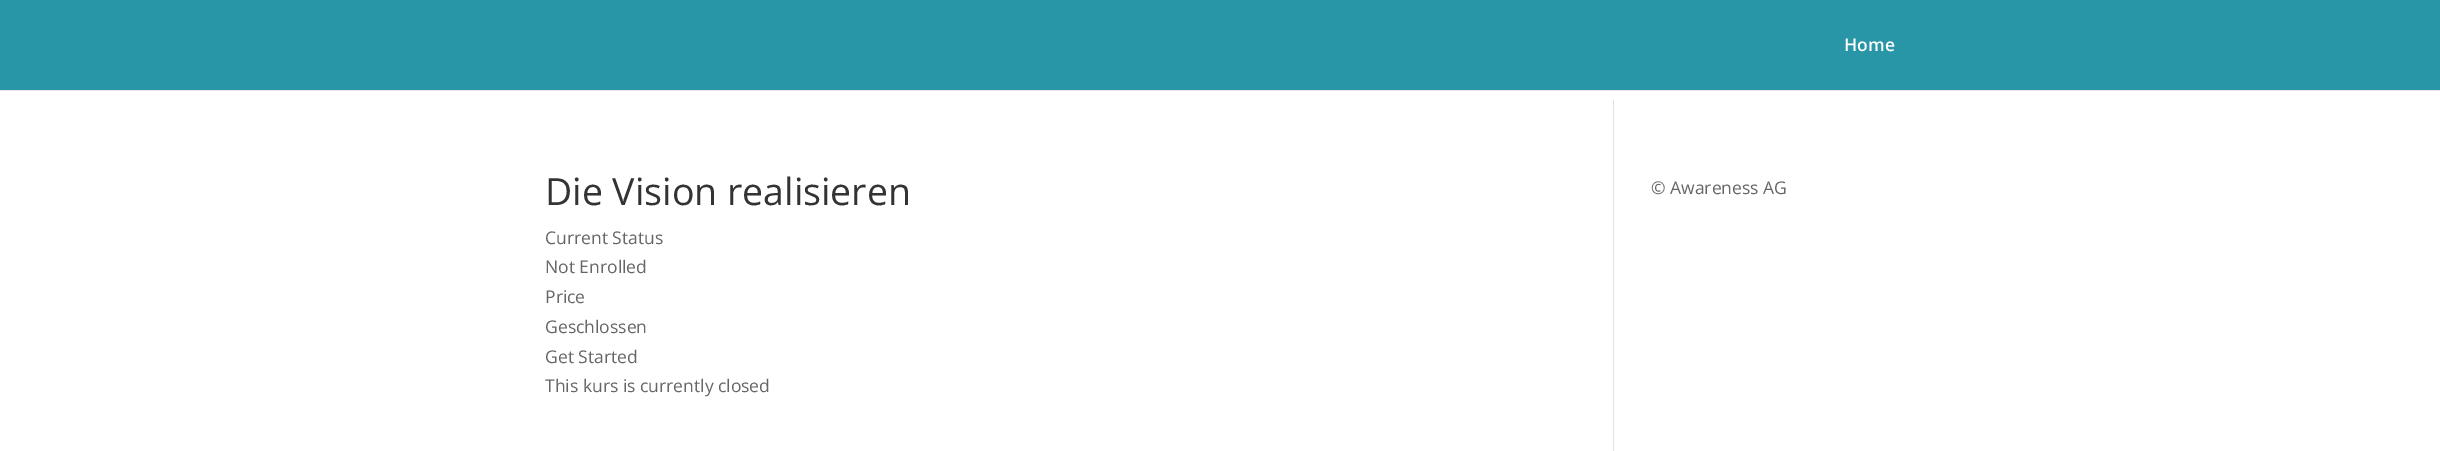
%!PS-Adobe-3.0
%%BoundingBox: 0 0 2440 451
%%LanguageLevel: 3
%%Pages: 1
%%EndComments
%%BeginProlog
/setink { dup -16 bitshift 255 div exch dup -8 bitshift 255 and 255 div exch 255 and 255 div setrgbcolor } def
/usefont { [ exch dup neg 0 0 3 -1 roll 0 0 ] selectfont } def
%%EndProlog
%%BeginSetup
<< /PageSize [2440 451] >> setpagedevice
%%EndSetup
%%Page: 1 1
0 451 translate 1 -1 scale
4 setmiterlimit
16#FFFFFF setink
0 0 2440 451 rectfill
16#E6E6E6 setink
0 90 2440 1 rectfill
16#2896A7 setink
0 0 2440 90 rectfill
/OpenSans-SemiBold 17.5 usefont
16#FFFFFF setink
1844 51 moveto (Home) show
16#E2E2E2 setink
1613 100 1 351 rectfill
/OpenSans-Regular 37.5 usefont
16#333333 setink
545 205 moveto (Die Vision realisieren) show
/OpenSans-Regular 17.5 usefont
16#666666 setink
[
    [(Current Status) 545 244]
    [(Not Enrolled) 545 273]
    [(Price) 545 303]
    [(Geschlossen) 545 333]
    [(Get Started) 545 363]
    [(This kurs is currently closed) 545 392]
    [(© Awareness AG) 1651 194]
] { aload pop moveto show } forall
showpage
%%EOF
